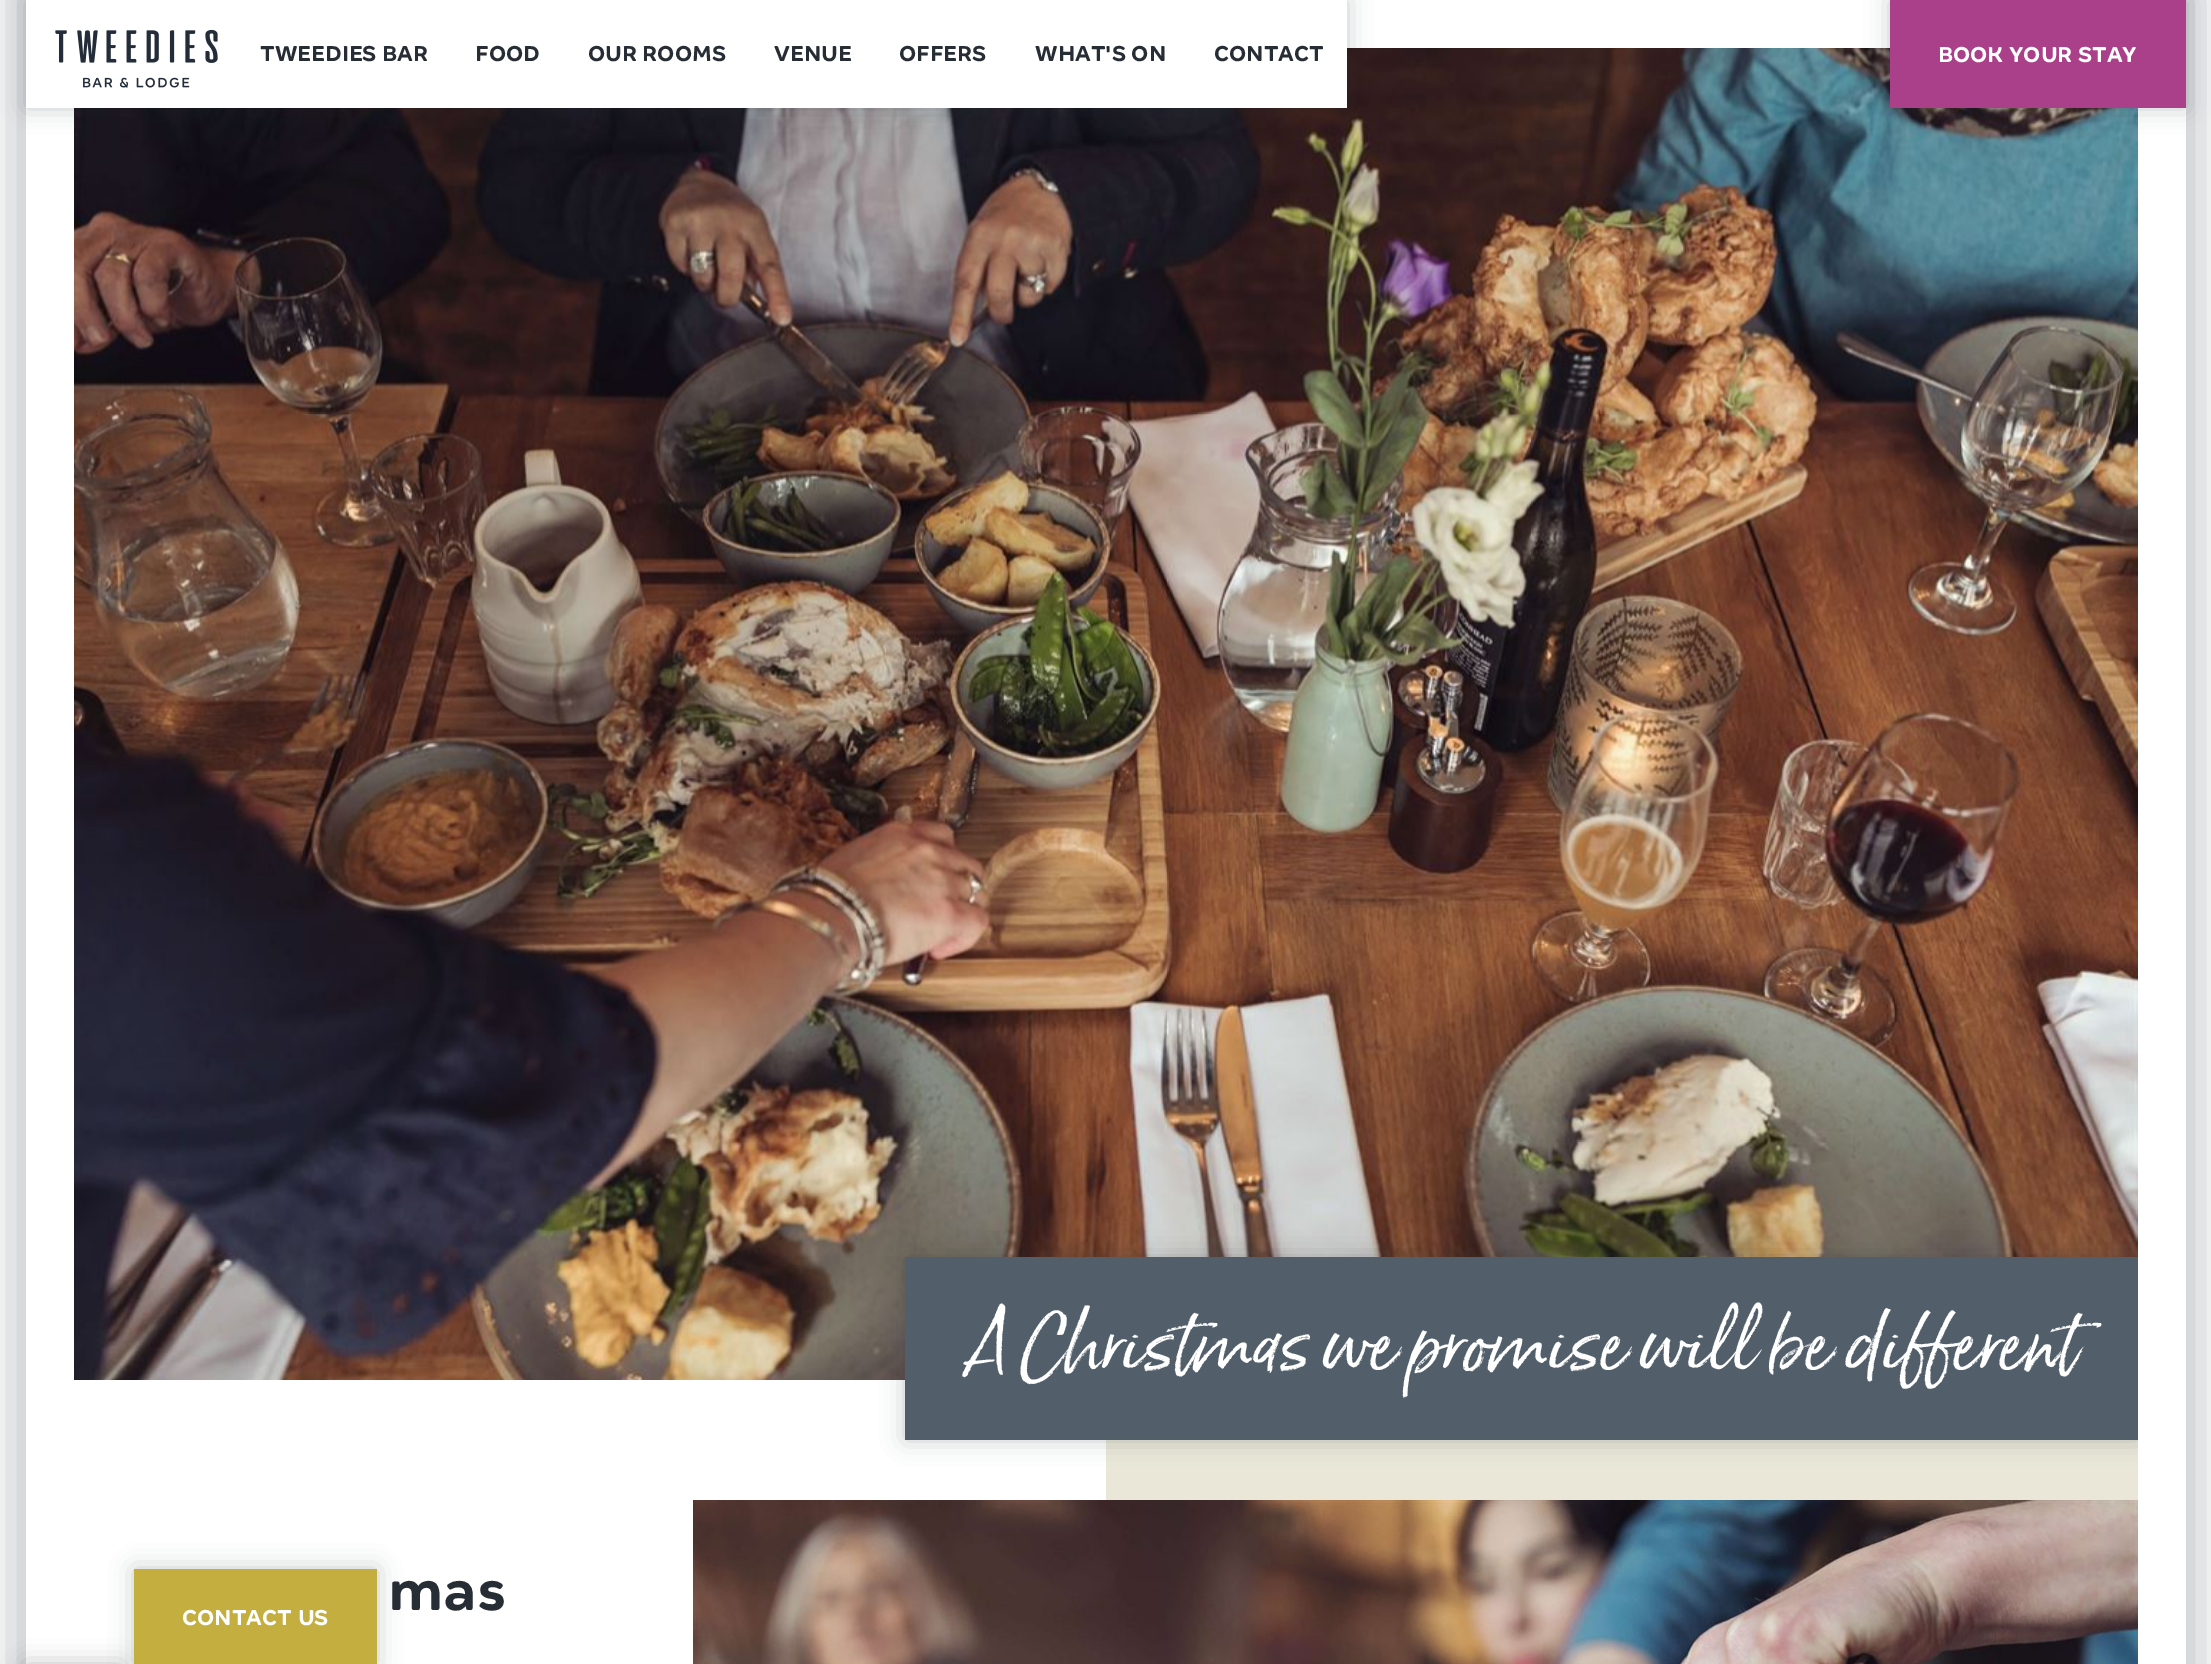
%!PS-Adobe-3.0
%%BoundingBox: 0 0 2211 1664
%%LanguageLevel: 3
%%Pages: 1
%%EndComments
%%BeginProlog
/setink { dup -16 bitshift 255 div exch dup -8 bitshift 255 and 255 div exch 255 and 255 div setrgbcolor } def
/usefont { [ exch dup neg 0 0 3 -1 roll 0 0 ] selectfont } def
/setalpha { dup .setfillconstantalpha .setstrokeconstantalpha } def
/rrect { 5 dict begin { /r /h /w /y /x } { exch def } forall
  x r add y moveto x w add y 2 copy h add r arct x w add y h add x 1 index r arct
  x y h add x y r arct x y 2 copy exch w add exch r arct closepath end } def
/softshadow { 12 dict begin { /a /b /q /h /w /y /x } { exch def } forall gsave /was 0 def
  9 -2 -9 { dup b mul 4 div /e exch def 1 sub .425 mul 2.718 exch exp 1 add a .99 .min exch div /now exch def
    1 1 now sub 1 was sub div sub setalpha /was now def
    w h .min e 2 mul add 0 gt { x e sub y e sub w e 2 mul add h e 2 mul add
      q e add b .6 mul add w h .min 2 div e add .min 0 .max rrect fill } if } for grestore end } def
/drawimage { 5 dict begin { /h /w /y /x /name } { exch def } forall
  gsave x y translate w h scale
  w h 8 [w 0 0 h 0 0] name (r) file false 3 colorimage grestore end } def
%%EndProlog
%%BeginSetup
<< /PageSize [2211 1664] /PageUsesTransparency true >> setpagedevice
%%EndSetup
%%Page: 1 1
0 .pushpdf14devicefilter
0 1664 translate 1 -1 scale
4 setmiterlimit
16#FFFFFF setink
0 0 2211 1664 rectfill
gsave
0 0 moveto 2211 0 lineto 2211 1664 lineto 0 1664 lineto closepath 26 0 moveto 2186 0 lineto 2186 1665 lineto 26 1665 lineto closepath eoclip newpath
16#272D34 setink
11 -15 2190 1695 0 22.5 0.25 softshadow
grestore
(img2.raw) 74 48 2064 1332 drawimage
16#272D34 setink
26 0 1321 108 0 12 0.25 softshadow
16#FFFFFF setink
26 0 1321 108 rectfill
(img1.raw) 55 29 163 59 drawimage
/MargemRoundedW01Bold-Bold 24 usefont
16#272D34 setink
[
    [(TWEEDIES BAR) 260 61]
    [(FOOD) 475 61]
    [(OUR ROOMS) 588 61]
    [(VENUE) 774 61]
    [(OFFERS) 899 61]
    [(WHAT'S ON) 1035 61]
    [(CONTACT) 1214 61]
] { aload pop moveto show } forall
1890 0 296 108 0 12 0.25 softshadow
16#AA4089 setink
1890 0 296 108 rectfill
16#FFFFFF setink
1938 62 moveto (BOOK YOUR STAY) show
16#EAE7D8 setink
1106 1440 1032 60 rectfill
gsave
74 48 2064 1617 rectclip
16#272D34 setink
905 1257 1233 183 0 12 0.25 softshadow
grestore
16#525F6A setink
905 1257 1233 183 rectfill
/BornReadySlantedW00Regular-Regular 72 usefont
16#FFFFFF setink
964 1367 moveto (A Christmas we promise will be different) show
/MargemRoundedW01Bold-Bold 60 usefont
16#272D34 setink
388 1610 moveto (mas) show
(img3.raw) 693 1500 1445 164 drawimage
134 1569 243 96 0 12 0.25 softshadow
16#000000 setink
26 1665 96 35 0 12 0.25 softshadow
16#C4AE3F setink
134 1569 243 95 rectfill
/MargemRoundedW01Bold-Bold 24 usefont
16#FFFFFF setink
182 1625 moveto (CONTACT US) show
.poppdf14devicefilter showpage
%%EOF
